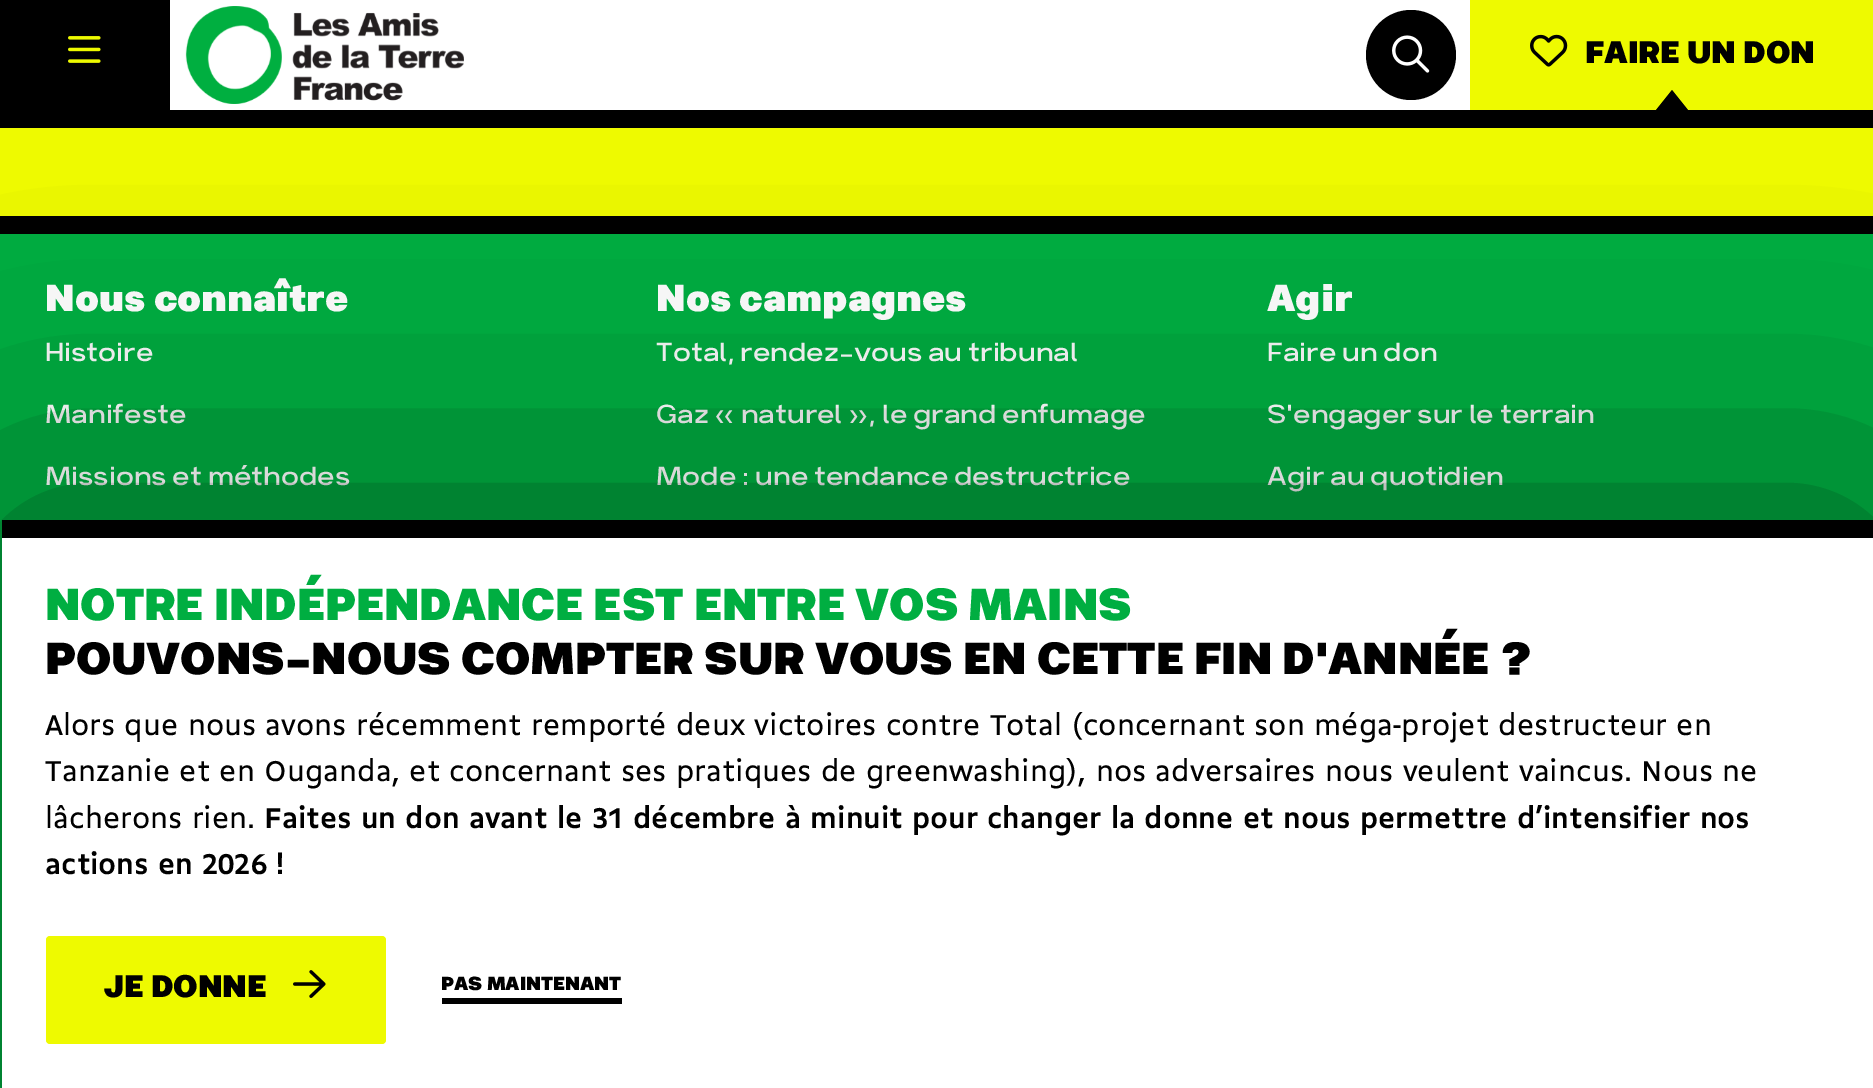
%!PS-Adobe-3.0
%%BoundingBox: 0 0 1873 1088
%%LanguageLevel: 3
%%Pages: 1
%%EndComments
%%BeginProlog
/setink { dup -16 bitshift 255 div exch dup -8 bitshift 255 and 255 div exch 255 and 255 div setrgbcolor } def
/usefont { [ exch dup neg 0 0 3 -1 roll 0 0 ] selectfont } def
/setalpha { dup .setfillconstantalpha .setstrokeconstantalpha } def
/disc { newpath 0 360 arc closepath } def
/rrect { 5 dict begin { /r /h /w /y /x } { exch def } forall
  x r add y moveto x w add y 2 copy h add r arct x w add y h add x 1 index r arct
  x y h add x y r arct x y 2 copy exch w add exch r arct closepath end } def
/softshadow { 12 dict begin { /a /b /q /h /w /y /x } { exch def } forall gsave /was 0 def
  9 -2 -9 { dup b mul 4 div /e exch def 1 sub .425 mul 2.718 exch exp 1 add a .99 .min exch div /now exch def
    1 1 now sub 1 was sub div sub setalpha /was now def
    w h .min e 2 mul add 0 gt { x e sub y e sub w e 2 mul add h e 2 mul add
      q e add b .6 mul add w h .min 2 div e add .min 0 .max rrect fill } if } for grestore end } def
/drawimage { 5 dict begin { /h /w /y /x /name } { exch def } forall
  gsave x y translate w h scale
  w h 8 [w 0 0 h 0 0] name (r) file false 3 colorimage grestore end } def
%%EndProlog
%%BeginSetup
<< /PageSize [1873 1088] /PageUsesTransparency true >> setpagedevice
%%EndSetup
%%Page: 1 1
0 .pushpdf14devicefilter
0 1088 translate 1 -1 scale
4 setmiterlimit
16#EEFA00 setink
0 0 1873 1088 rectfill
[
    [170 0 1300 110 16#FFFFFF]
    [0 110 1873 18 16#000000]
    [0 0 170 110 16#000000]
] { aload pop setink rectfill } forall
(img1.raw) 68 36 33 27 drawimage
(img2.raw) 185 6 279 98 drawimage
1411 55 45 disc fill
(img3.raw) 1392 35 38 38 drawimage
(img4.raw) 1530 34 38 33 drawimage
/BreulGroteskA-Black 37.25 usefont
1585 63 moveto (FAIRE UN DON) show
1688 110 moveto 1656 110 lineto 1672 90 lineto closepath fill
16#00AE41 setink
0 234 1873 854 rectfill
16#000000 setink
0 216 1873 18 rectfill
/BreulGroteskA-Black 44.75 usefont
16#FFFFFF setink
45 311 moveto (Nous connaître) show
/BreulGroteskA-Light 31 usefont
[
    [(Histoire) 45 361]
    [(Manifeste) 45 423]
    [(Missions et méthodes) 45 485]
] { aload pop moveto show } forall
/BreulGroteskA-Black 44.75 usefont
656 311 moveto (Nos campagnes) show
/BreulGroteskA-Light 31 usefont
[
    [(Total, rendez-vous au tribunal) 656 361]
    [(Gaz « naturel », le grand enfumage) 656 423]
    [(Mode : une tendance destructrice) 656 485]
] { aload pop moveto show } forall
/BreulGroteskA-Black 44.75 usefont
1267 311 moveto (Agir) show
/BreulGroteskA-Light 31 usefont
[
    [(Faire un don) 1267 361]
    [(S'engager sur le terrain) 1267 423]
    [(Agir au quotidien) 1267 485]
] { aload pop moveto show } forall
16#000000 setink
2 520 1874 568 0 149 0.5 softshadow
16#FFFFFF setink
2 538 1871 550 rectfill
16#000000 setink
2 520 1871 18 rectfill
/BreulGroteskA-Black 53.6 usefont
16#00AE41 setink
45 620 moveto (NOTRE INDÉPENDANCE EST ENTRE VOS MAINS) show
16#000000 setink
45 674 moveto (POUVONS-NOUS COMPTER SUR VOUS EN CETTE FIN D'ANNÉE ?) show
/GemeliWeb-Regular 31 usefont
[
    [(Alors que nous avons récemment remporté deux victoires contre Total \(concernant son méga-projet destructeur en) 45 735]
    [(Tanzanie et en Ouganda, et concernant ses pratiques de greenwashing\), nos adversaires nous veulent vaincus. Nous ne) 45 781]
    [(lâcherons rien.) 45 828]
] { aload pop moveto show } forall
/GemeliWeb-Bold 31 usefont
264 828 moveto (Faites un don avant le 31 décembre à minuit pour changer la donne et nous permettre d’intensifier nos) show
45 874 moveto (actions en 2026 !) show
16#EEFA00 setink
46 936 340 108 4 rrect fill
/BreulGroteskA-Black 37.25 usefont
16#000000 setink
104 997 moveto (JE DONNE) show
(img5.raw) 293 970 33 28 drawimage
/BreulGroteskA-Black 22.5 usefont
441 990 moveto (PAS MAINTENANT) show
442 998 180 6 rectfill
.poppdf14devicefilter showpage
%%EOF
